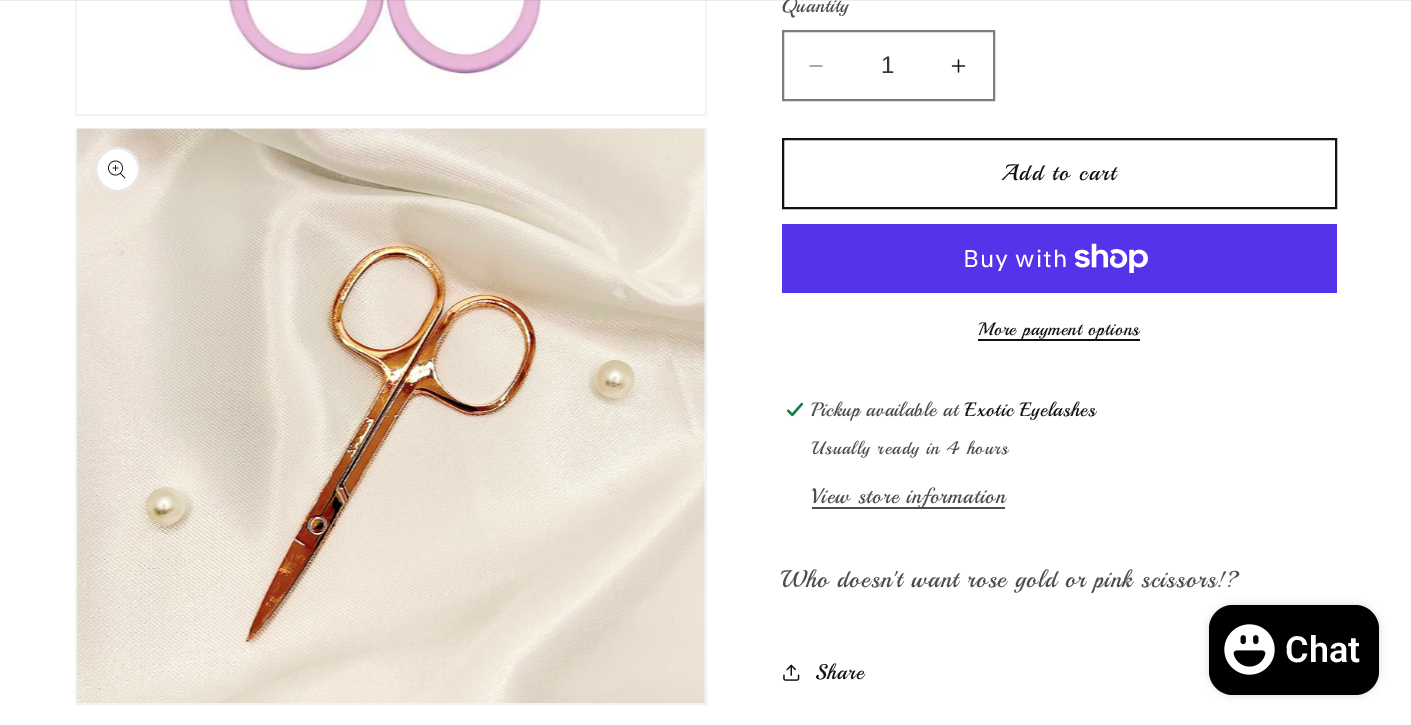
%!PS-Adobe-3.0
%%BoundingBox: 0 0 1411 725
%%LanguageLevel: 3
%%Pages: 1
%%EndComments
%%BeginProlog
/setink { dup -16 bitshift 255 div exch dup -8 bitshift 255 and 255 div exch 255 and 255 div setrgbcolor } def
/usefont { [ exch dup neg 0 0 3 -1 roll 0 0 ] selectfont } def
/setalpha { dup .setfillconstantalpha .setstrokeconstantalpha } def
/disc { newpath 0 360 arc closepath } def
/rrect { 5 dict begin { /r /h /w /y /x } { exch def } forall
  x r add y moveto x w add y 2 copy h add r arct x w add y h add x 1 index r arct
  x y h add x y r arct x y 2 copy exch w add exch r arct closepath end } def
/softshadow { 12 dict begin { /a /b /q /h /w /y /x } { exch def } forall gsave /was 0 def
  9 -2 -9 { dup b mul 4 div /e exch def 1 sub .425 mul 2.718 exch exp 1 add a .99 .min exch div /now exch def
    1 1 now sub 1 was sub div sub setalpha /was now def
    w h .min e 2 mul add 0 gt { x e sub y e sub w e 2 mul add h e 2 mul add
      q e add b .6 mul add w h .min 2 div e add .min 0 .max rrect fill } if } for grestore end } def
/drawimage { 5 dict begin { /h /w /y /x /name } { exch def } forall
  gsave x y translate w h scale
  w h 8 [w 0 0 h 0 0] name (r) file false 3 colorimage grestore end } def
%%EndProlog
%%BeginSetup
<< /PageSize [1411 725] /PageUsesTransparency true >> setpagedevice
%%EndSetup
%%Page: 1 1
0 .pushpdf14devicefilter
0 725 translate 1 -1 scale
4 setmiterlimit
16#FFFFFF setink
0 0 1411 725 rectfill
16#F3F3F3 setink
2 setlinewidth
76 -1 630 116 rectstroke
(img1.raw) 225 0 318 79 drawimage
0.08 setalpha
16#121212 setink
0 0 1411 1 rectfill
1 setalpha
16#F3F3F3 setink
76 129 630 575 rectstroke
(img2.raw) 77 128 629 575 drawimage
16#FFFFFF setink
117.5 169.5 22.5 disc fill
0.1 setalpha
16#121212 setink
117.5 169.5 21.5 disc stroke
1 setalpha
(img3.raw) 108 160 18 19 drawimage
/Playball-Regular 19.5 usefont
16#4D4D4D setink
781 12 moveto 0.6 0 (Quantity) ashow
(img4.raw) 809 65 14 2 drawimage
(img5.raw) 951 59 15 14 drawimage
16#7D7D7D setink
783 31 211 69 rectstroke
/LiberationSans-Regular 24 usefont
16#363636 setink
881 73 moveto (1) show
16#121212 setink
783 139 553 69 rectstroke
/Playball-Regular 22.5 usefont
1001 180 moveto 1.5 0 (Add to cart) ashow
16#5433EB setink
782 224 555 69 rectfill
/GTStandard-Regular 24 usefont
16#FFFFFF setink
963 267 moveto 0.9 0 (Buy with) ashow
(img6.raw) 1074 243 74 30 drawimage
16#121212 setink
978 339 162 2 rectfill
/Playball-Regular 18 usefont
978 335 moveto 0.75 0 (More payment options) ashow
(img7.raw) 786 402 18 15 drawimage
/Playball-Regular 19.5 usefont
16#4D4D4D setink
811 416 moveto 0.6 0 (Pickup available at) ashow
16#121212 setink
965 416 moveto 0.6 0 (Exotic Eyelashes) ashow
/Playball-Regular 18 usefont
16#4D4D4D setink
811 454 moveto 1.05 0 (Usually ready in 4 hours) ashow
812 507 193 2 rectfill
/Playball-Regular 21 usefont
811 503 moveto 0.9 0 (View store information) ashow
/Playball-Regular 24 usefont
781 587 moveto 0.9 0 (Who doesn't want rose gold or pink scissors!?) ashow
(img8.raw) 783 664 17 17 drawimage
/Playball-Regular 21 usefont
16#121212 setink
815 679 moveto 0.9 0 (Share) ashow
16#000000 setink
1209 605 170 90 24 4 0.15 softshadow
1209 605 170 90 24 rrect fill
(img9.raw) 1224 624 51 51 drawimage
/Roboto-SemiBold 36 usefont
16#FFFFFF setink
1285 662 moveto (Chat) show
.poppdf14devicefilter showpage
%%EOF
